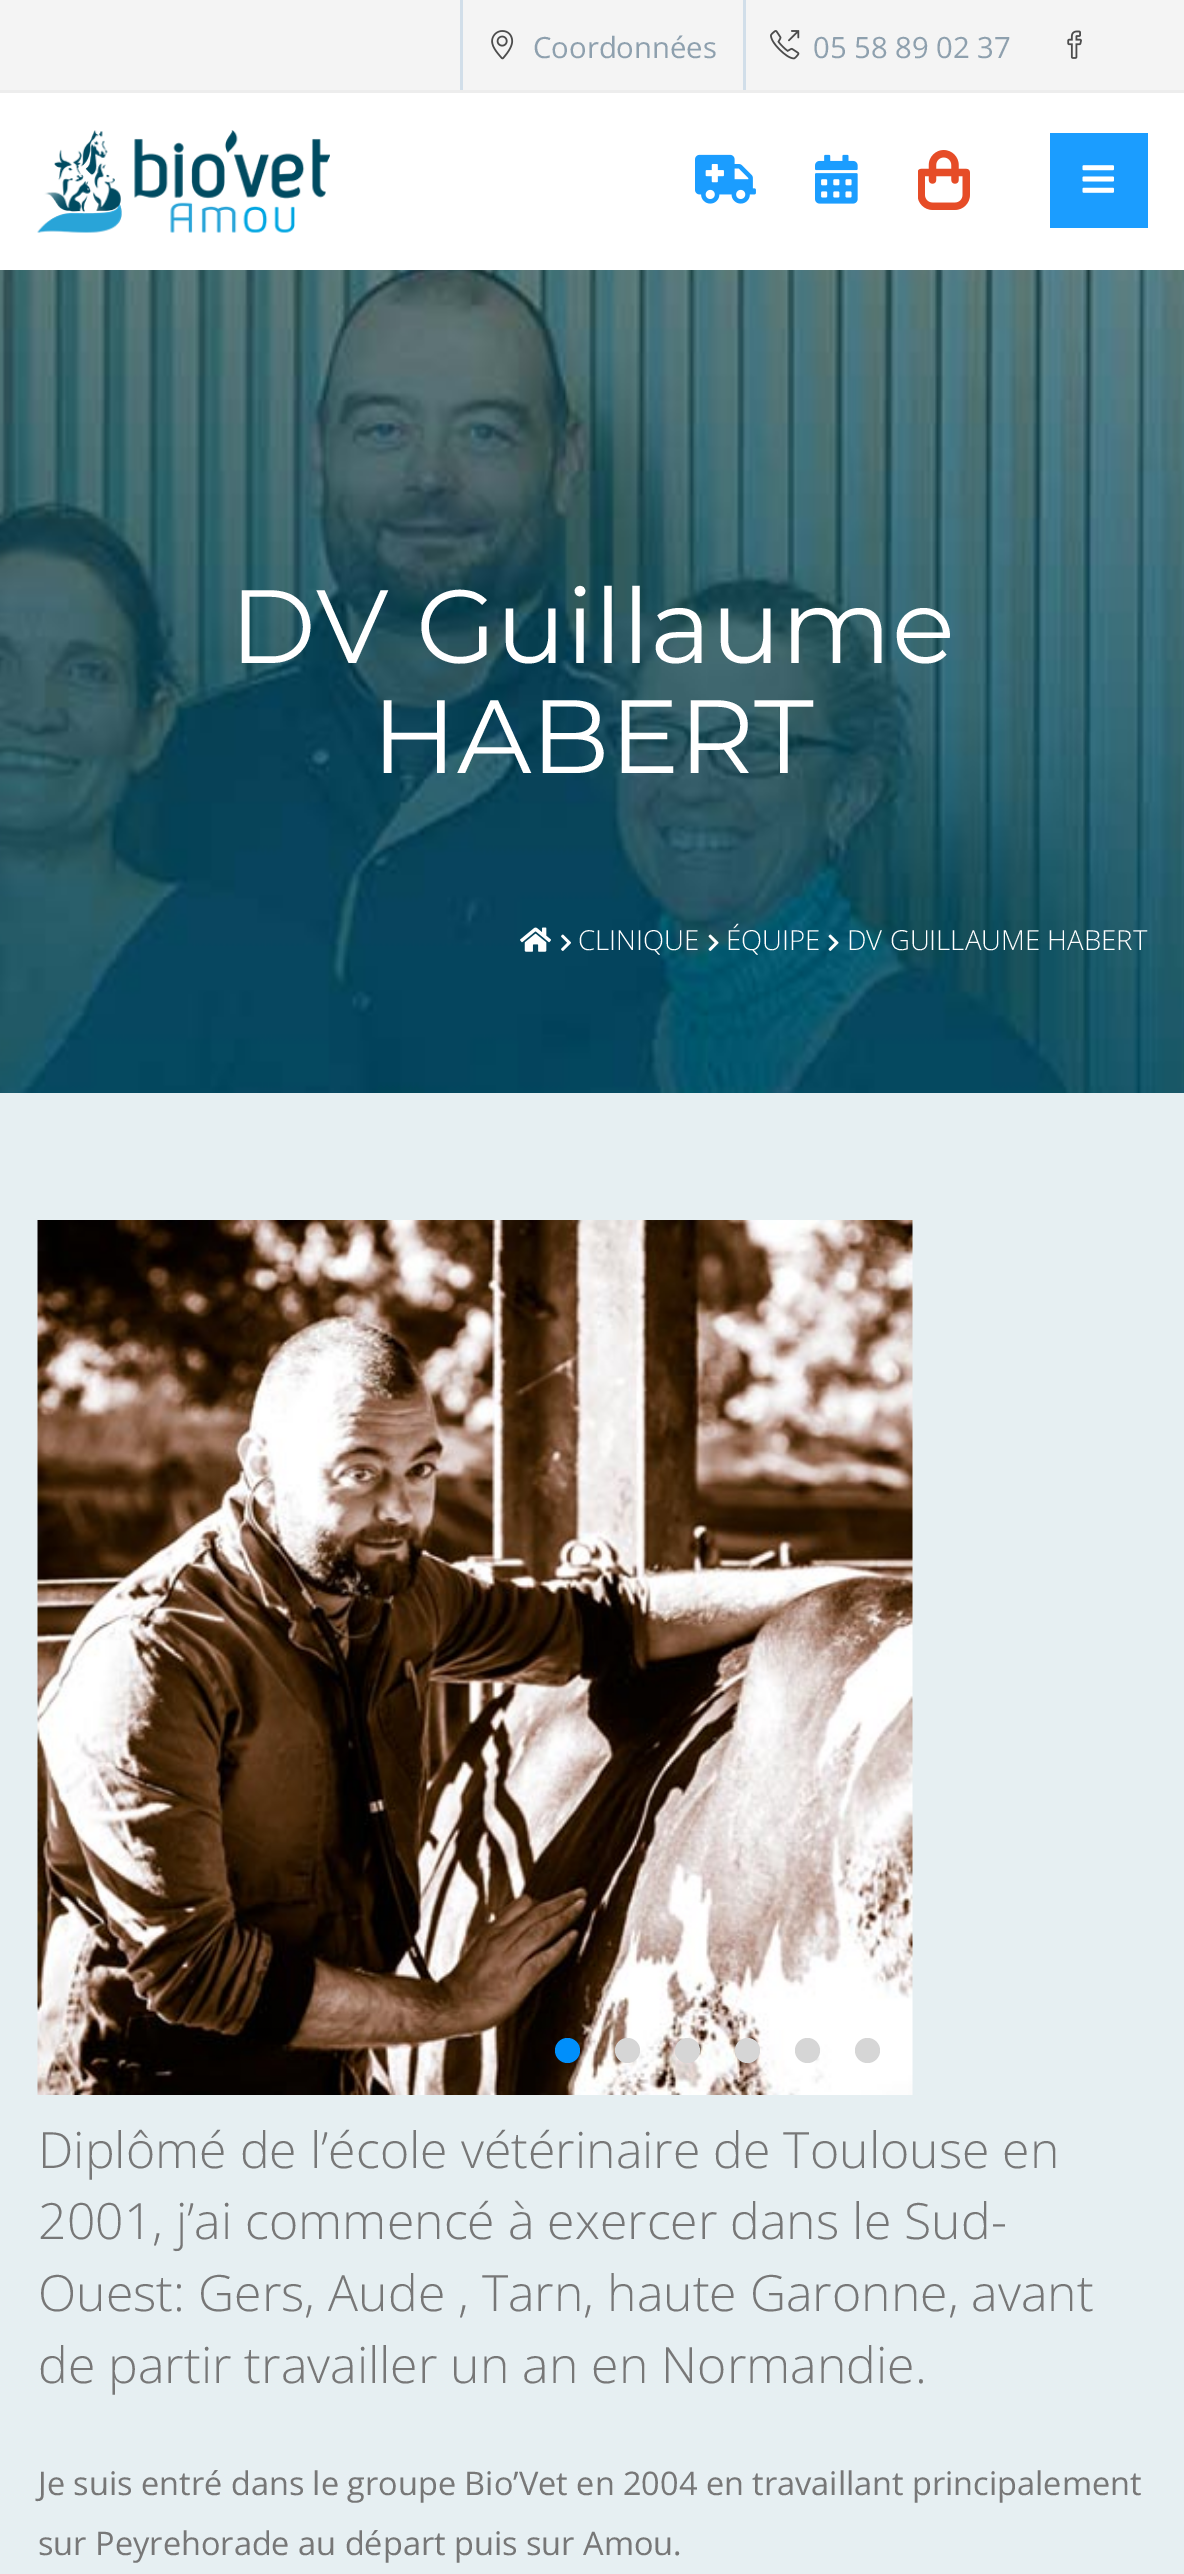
%!PS-Adobe-3.0
%%BoundingBox: 0 0 1184 2574
%%LanguageLevel: 3
%%Pages: 1
%%EndComments
%%BeginProlog
/setink { dup -16 bitshift 255 div exch dup -8 bitshift 255 and 255 div exch 255 and 255 div setrgbcolor } def
/usefont { [ exch dup neg 0 0 3 -1 roll 0 0 ] selectfont } def
/disc { newpath 0 360 arc closepath } def
/drawimage { 5 dict begin { /h /w /y /x /name } { exch def } forall
  gsave x y translate w h scale
  w h 8 [w 0 0 h 0 0] name (r) file false 3 colorimage grestore end } def
%%EndProlog
%%BeginSetup
<< /PageSize [1184 2574] >> setpagedevice
%%EndSetup
%%Page: 1 1
0 2574 translate 1 -1 scale
4 setmiterlimit
16#FFFFFF setink
0 0 1184 2574 rectfill
[
    [0 0 1184 90 16#F4F4F4]
    [0 90 1184 3 16#EDEDED]
    [743 0 3 90 16#D1DEE9]
    [460 0 3 90 16#D1DEE9]
] { aload pop setink rectfill } forall
(img1.raw) 491 30 23 30 drawimage
/OpenSans-Regular 29.25 usefont
16#8EA0AE setink
533 58 moveto (Coordonnées) show
(img2.raw) 770 30 30 30 drawimage
813 58 moveto (05 58 89 02 37) show
(img3.raw) 1067 30 15 29 drawimage
(img4.raw) 37 130 293 103 drawimage
(img5.raw) 695 154 61 50 drawimage
(img6.raw) 815 154 43 50 drawimage
(img7.raw) 918 150 52 60 drawimage
16#1B9DFF setink
1050 133 98 95 rectfill
(img8.raw) 1082 165 32 28 drawimage
(img9.raw) 0 270 1184 823 drawimage
/Montserrat-Regular 104 usefont
16#FFFFFF setink
230 663 moveto (DV Guillaume) show
372 773 moveto (HABERT) show
(img10.raw) 520 927 31 25 drawimage
(img11.raw) 561 934 10 17 drawimage
/OpenSans-Light 27.6 usefont
578 950 moveto (CLINIQUE) show
(img12.raw) 708 934 11 17 drawimage
726 950 moveto (ÉQUIPE) show
(img13.raw) 828 934 11 17 drawimage
847 950 moveto (DV GUILLAUME HABERT) show
16#E6EFF2 setink
0 1093 1184 1481 rectfill
(img14.raw) 37 1220 876 875 drawimage
16#008FFB setink
567.5 2050.5 12.5 disc fill
16#D6D6D6 setink
627.5 2050.5 12.5 disc fill
687.5 2050.5 12.5 disc fill
747.5 2050.5 12.5 disc fill
807.5 2050.5 12.5 disc fill
867.5 2050.5 12.5 disc fill
/OpenSans-Light 50 usefont
16#777777 setink
[
    [(Diplômé de l’école vétérinaire de Toulouse en) 38 2168]
    [(2001, j’ai commencé à exercer dans le Sud-) 38 2239]
    [(Ouest: Gers, Aude , Tarn, haute Garonne, avant) 38 2311]
    [(de partir travailler un an en Normandie.) 38 2383]
] { aload pop moveto show } forall
/OpenSans-Regular 32.5 usefont
38 2495 moveto (Je suis entré dans le groupe Bio’Vet en 2004 en travaillant principalement) show
38 2555 moveto (sur Peyrehorade au départ puis sur Amou.) show
showpage
%%EOF
